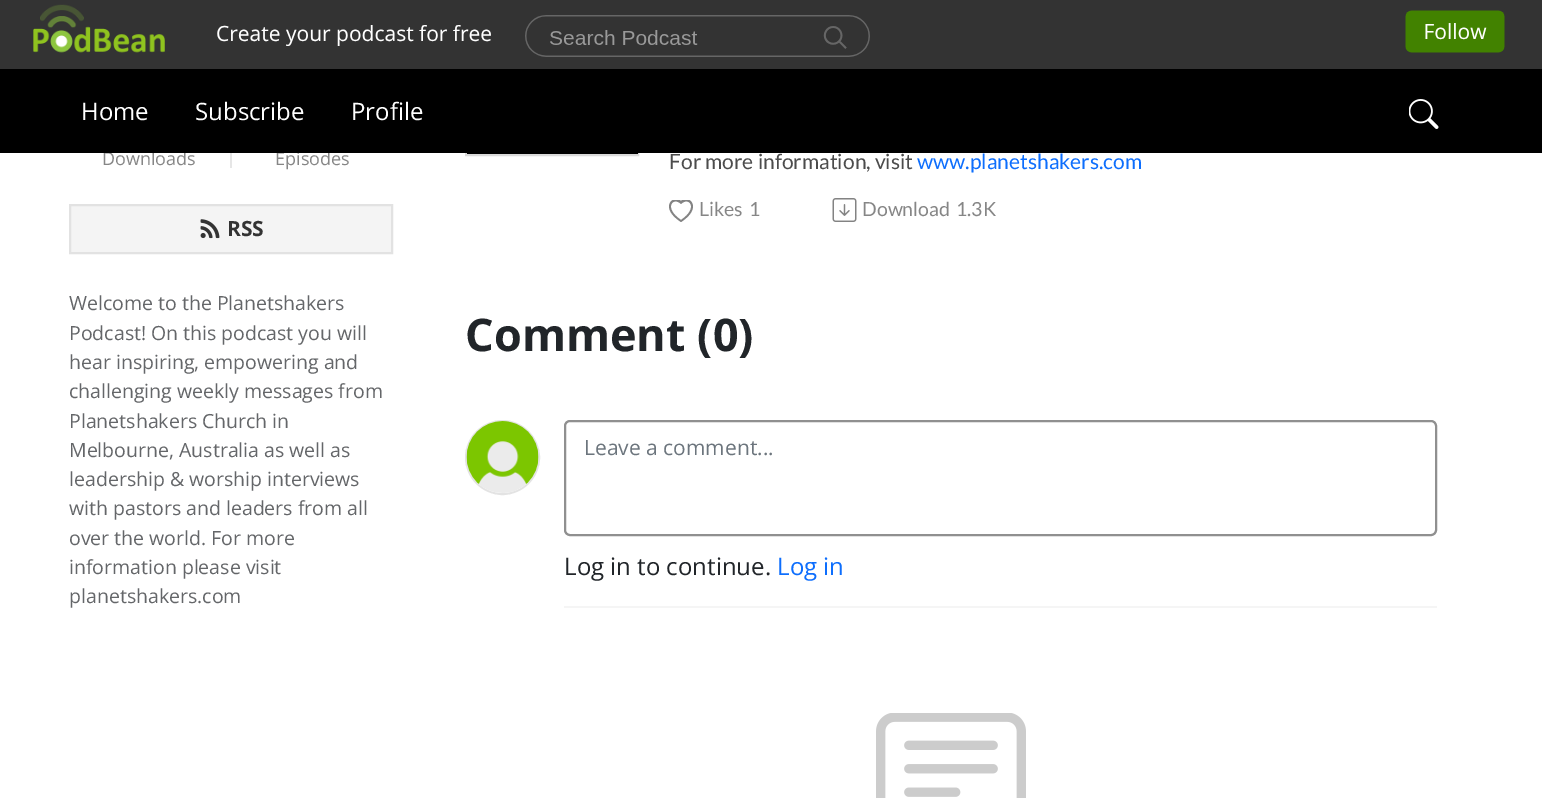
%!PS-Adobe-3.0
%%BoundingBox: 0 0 1542 798
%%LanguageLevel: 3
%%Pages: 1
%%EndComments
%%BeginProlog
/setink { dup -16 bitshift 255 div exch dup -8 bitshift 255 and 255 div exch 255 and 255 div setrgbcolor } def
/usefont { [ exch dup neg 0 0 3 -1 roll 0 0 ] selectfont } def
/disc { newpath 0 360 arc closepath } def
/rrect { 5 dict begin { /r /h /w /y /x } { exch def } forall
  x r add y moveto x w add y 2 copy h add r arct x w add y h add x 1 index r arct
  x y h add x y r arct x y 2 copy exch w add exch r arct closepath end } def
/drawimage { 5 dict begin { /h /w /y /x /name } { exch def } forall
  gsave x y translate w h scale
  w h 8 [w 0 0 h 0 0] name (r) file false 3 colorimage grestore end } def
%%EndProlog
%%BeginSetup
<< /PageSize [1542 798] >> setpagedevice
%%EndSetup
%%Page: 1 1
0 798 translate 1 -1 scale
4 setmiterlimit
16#FFFFFF setink
0 0 1542 798 rectfill
16#DADADA setink
2 setlinewidth
466 -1 172 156 rectstroke
16#333333 setink
0 0 1542 69 rectfill
(img1.raw) 33 4 1472 53 drawimage
/OpenSans-Regular 18 usefont
16#868686 setink
102 165 moveto (Downloads) show
275 165 moveto (Episodes) show
16#000000 setink
0 69 1542 84 rectfill
/OpenSans-Regular 24 usefont
16#FFFFFF setink
[
    [(Home) 81 120]
    [(Subscribe) 195 120]
    [(Profile) 351 120]
] { aload pop moveto show } forall
(img2.raw) 1409 99 30 30 drawimage
16#E6E6E6 setink
230 153 2 15 rectfill
16#F4F4F4 setink
70 205 moveto 392 205 lineto 392 253 lineto 70 253 lineto closepath gsave fill grestore
16#E2E2E2 setink
stroke
(img3.raw) 200 219 20 20 drawimage
/OpenSans-Bold 21 usefont
16#333333 setink
227 236 moveto (RSS) show
/OpenSans-Regular 19.5 usefont
16#646669 setink
[
    [(Welcome to the Planetshakers) 69 310]
    [(Podcast! On this podcast you will) 69 340]
    [(hear inspiring, empowering and) 69 369]
    [(challenging weekly messages from) 69 398]
    [(Planetshakers Church in) 69 428]
    [(Melbourne, Australia as well as) 69 457]
    [(leadership & worship interviews) 69 486]
    [(with pastors and leaders from all) 69 515]
    [(over the world. For more) 69 545]
    [(information please visit) 69 574]
    [(planetshakers.com) 69 603]
] { aload pop moveto show } forall
(img4.raw) 467 153 171 1 drawimage
/Lato-Regular 21 usefont
16#4C4C4C setink
669 169 moveto (For more information, visit) show
16#0D6EFD setink
917 169 moveto (www.planetshakers.com) show
gsave
666 200 30 24 rectclip
16#838383 setink
681 204 moveto 673 196 663 208 681 220 curveto 699 208 689 196 681 204 curveto closepath 681 222 moveto 658 207 674 194 681 201 curveto 688 194 704 207 681 222 curveto closepath fill
grestore
/Lato-Regular 19.5 usefont
16#868686 setink
699 216 moveto (Likes) show
749 216 moveto (1) show
(img5.raw) 832 198 25 24 drawimage
862 216 moveto (Download) show
956 216 moveto (1.3K) show
/OpenSans-Bold 45 usefont
16#212529 setink
465 351 moveto (Comment \(0\)) show
16#E3E3E3 setink
502.5 457.5 36.5 disc stroke
(img6.raw) 466 421 73 72 drawimage
16#F5F5F5 setink
564 606 873 2 rectfill
16#909090 setink
565 421 871 114 5 rrect stroke
/OpenSans-Regular 21 usefont
16#6C757D setink
584 455 moveto (Leave a comment...) show
/OpenSans-Regular 24 usefont
16#212529 setink
564 575 moveto (Log in to continue.) show
16#0D6EFD setink
777 575 moveto (Log in) show
(img7.raw) 876 713 150 85 drawimage
showpage
%%EOF
